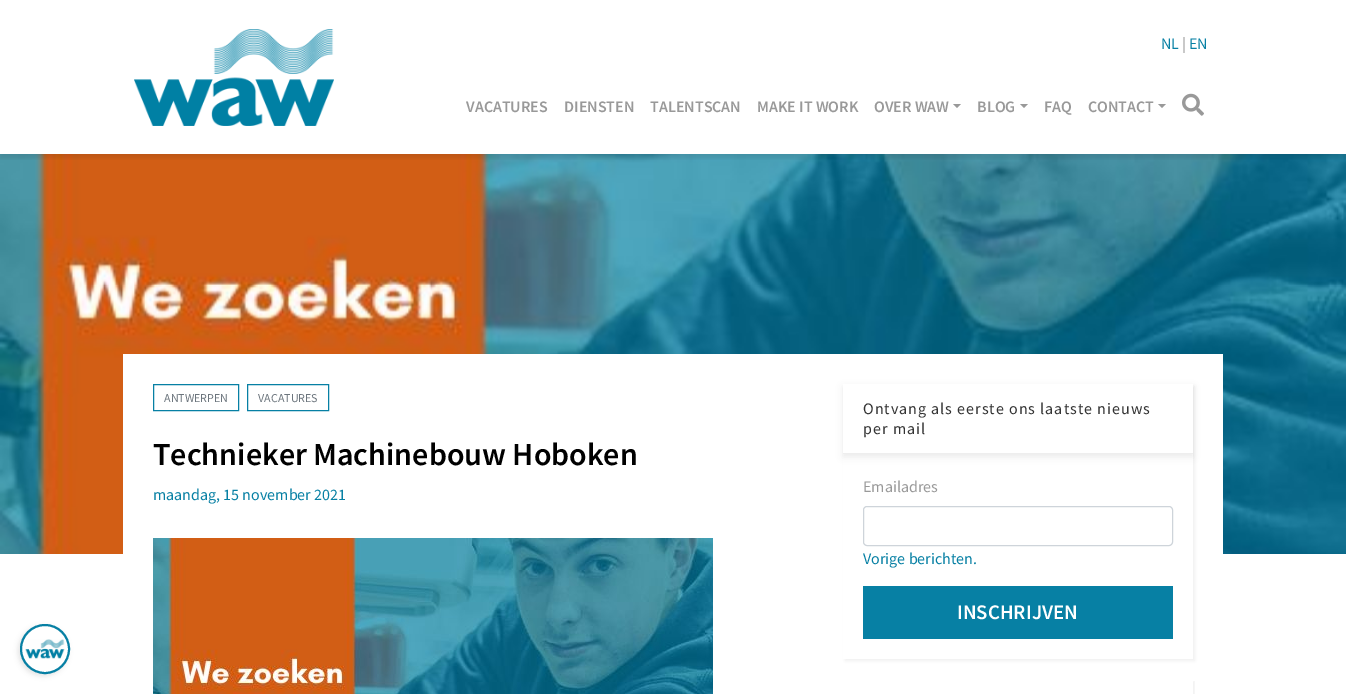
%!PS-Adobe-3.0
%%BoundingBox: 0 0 1346 694
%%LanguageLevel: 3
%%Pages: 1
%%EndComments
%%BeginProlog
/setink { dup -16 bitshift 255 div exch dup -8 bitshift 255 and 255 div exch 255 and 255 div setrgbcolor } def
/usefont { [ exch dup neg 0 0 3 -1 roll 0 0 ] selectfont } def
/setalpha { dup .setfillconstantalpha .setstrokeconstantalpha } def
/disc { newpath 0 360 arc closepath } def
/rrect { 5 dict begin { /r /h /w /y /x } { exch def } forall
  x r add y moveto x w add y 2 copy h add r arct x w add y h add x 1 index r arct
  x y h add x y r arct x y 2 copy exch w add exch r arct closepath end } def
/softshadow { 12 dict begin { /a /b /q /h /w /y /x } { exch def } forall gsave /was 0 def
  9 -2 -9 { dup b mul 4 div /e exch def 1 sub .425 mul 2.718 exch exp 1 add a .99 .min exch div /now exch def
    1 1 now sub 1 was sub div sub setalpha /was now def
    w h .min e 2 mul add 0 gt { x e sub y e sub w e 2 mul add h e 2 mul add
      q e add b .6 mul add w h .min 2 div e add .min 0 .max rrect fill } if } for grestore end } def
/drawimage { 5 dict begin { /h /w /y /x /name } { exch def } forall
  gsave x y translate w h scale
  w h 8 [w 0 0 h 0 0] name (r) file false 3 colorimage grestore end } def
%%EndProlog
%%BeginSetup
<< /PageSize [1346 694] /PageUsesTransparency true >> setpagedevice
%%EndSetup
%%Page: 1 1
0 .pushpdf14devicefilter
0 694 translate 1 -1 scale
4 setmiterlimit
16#FFFFFF setink
0 0 1346 694 rectfill
(img3.raw) 0 154 1346 400 drawimage
gsave
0 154 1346 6 rectclip
16#000000 setink
0 2 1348 156 0 2.5 0.1 softshadow
grestore
(img1.raw) 134 29 200 97 drawimage
/SourceSansPro-Regular 16 usefont
16#0780A4 setink
1161 49 moveto (NL) show
16#999999 setink
1182 49 moveto (|) show
16#0780A4 setink
1189 49 moveto (EN) show
/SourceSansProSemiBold-SemiBold 16 usefont
16#999999 setink
[
    [(VACATURES) 466 112]
    [(DIENSTEN) 564 112]
    [(TALENTSCAN) 650 112]
    [(MAKE IT WORK) 757 112]
    [(OVER WAW) 874 112]
] { aload pop moveto show } forall
953 104 moveto 961 104 lineto 957 108 lineto closepath fill
977 112 moveto (BLOG) show
1020 104 moveto 1028 104 lineto 1024 108 lineto closepath fill
1044 112 moveto (FAQ) show
1088 112 moveto (CONTACT) show
1158 104 moveto 1166 104 lineto 1162 108 lineto closepath fill
(img2.raw) 1182 93 22 23 drawimage
16#FFFFFF setink
123 354 1100 200 rectfill
16#0780A4 setink
153.5 384.5 85 26 rectstroke
/SourceSansPro-Regular 12 usefont
16#6C757D setink
164 402 moveto (ANTWERPEN) show
16#0780A4 setink
247.5 384.5 81 26 rectstroke
16#6C757D setink
258 402 moveto (VACATURES) show
/SourceSansProSemiBold-SemiBold 32 usefont
16#000000 setink
153 465 moveto (Technieker Machinebouw Hoboken) show
/SourceSansPro-Regular 16 usefont
16#0780A4 setink
153 500 moveto (maandag, 15 november 2021) show
(img4.raw) 153 538 560 156 drawimage
gsave
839 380 moveto 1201 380 lineto 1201 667 lineto 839 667 lineto closepath 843 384 moveto 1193 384 lineto 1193 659 lineto 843 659 lineto closepath eoclip newpath
16#000000 setink
845 386 350 275 0 1.5 0.05 softshadow
grestore
gsave
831 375 moveto 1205 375 lineto 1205 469 lineto 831 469 lineto closepath 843 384 moveto 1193 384 lineto 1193 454 lineto 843 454 lineto closepath eoclip newpath
16#000000 setink
843 387 350 70 0 3.5 0.07 softshadow
grestore
16#EEEEEE setink
843 453 350 1 rectfill
16#333333 setink
863 414 moveto 1 0 (Ontvang als eerste ons laatste nieuws) ashow
863 434 moveto 1 0 (per mail) ashow
16#999999 setink
863 492 moveto (Emailadres) show
16#CED4DA setink
863.5 506.5 309 39 3.5 rrect stroke
16#0780A4 setink
863 564 moveto (Vorige berichten.) show
863 586 310 53 rectfill
/SourceSansProSemiBold-SemiBold 20.75 usefont
16#FFFFFF setink
957 619 moveto (INSCHRIJVEN) show
gsave
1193 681 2 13 rectclip
16#000000 setink
845 681 350 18 0 1.5 0.05 softshadow
grestore
16#000000 setink
18 626 50 50 25 2.5 0.1 softshadow
16#FFFFFF setink
45 649 24 disc gsave fill grestore
16#0780A4 setink
2 setlinewidth
stroke
(img5.raw) 25 639 40 20 drawimage
.poppdf14devicefilter showpage
%%EOF
